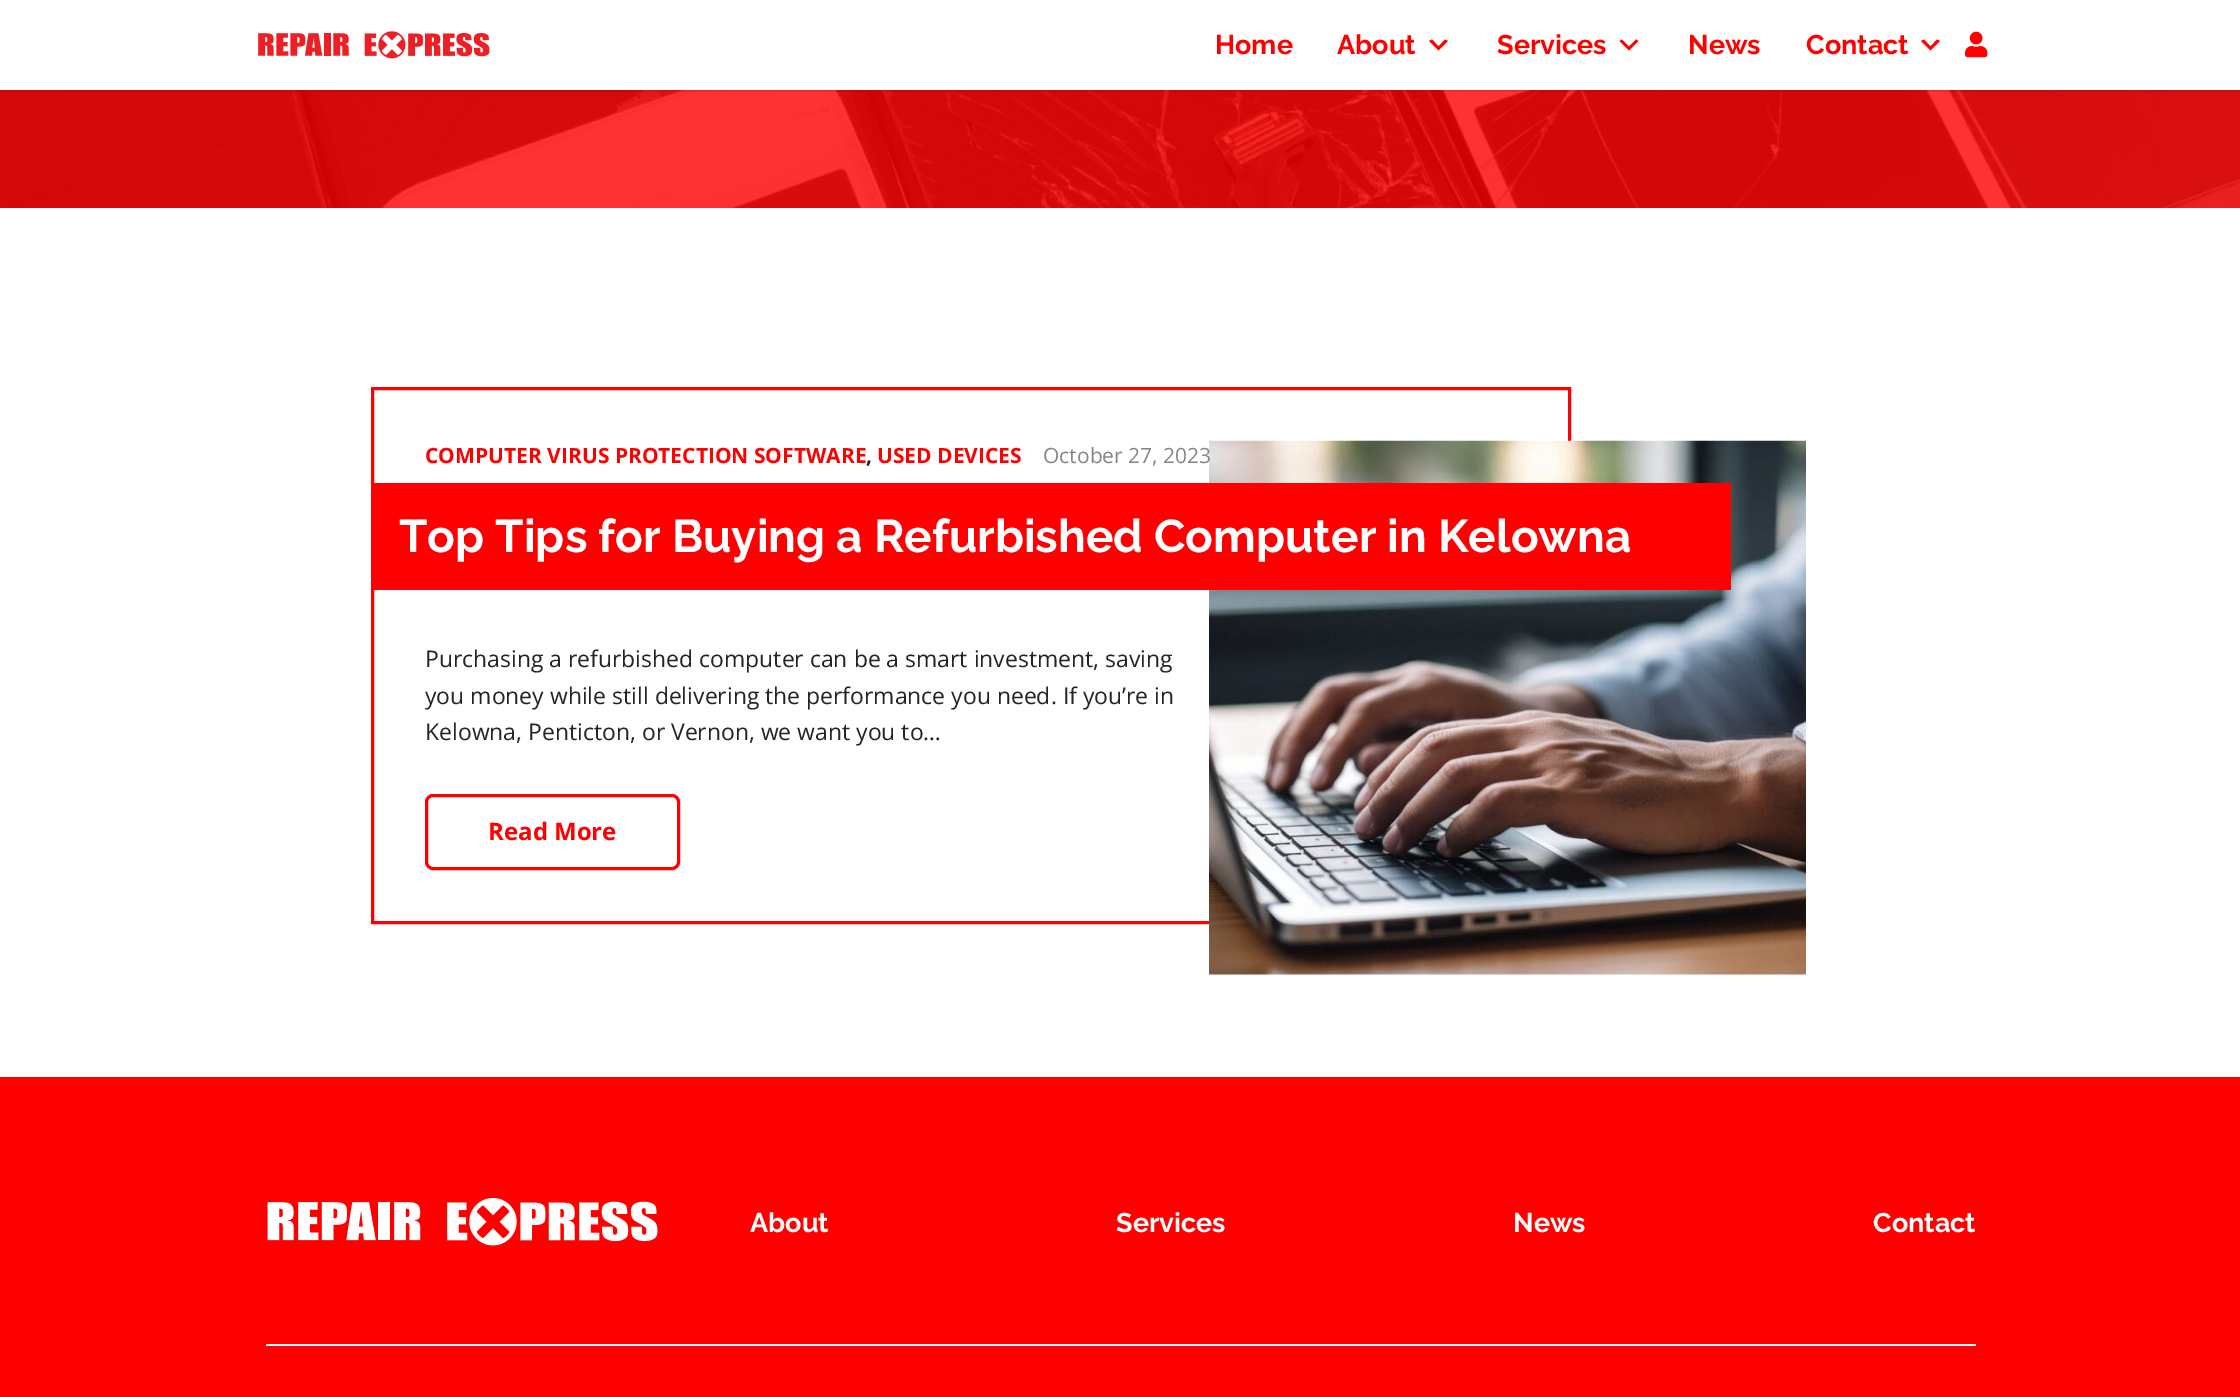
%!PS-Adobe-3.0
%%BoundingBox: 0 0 2240 1397
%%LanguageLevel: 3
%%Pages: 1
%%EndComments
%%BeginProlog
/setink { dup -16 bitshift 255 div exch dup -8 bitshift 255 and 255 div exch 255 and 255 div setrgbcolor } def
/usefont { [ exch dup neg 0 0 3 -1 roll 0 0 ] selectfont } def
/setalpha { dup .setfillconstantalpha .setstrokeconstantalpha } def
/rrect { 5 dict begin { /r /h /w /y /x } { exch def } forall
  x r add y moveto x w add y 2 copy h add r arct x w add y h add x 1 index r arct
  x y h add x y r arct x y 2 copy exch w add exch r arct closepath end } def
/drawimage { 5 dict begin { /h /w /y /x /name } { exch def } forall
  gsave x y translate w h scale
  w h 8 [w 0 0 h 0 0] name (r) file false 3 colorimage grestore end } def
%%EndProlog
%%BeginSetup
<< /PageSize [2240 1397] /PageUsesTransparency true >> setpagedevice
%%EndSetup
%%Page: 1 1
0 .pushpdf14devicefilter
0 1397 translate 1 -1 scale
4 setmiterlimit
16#FFFFFF setink
0 0 2240 1397 rectfill
(img3.raw) 0 90 2240 118 drawimage
0.08 setalpha
16#000000 setink
0 90 2240 2 rectfill
1 setalpha
(img1.raw) 258 31 232 28 drawimage
/Raleway-Thin 27 usefont
16#FF0000 setink
1215 54 moveto (Home) show
1337 54 moveto (About) show
1432 39.5 moveto 1438.5 46.5 lineto 1445 39.5 lineto 1448 41 lineto 1438.5 50.5 lineto 1429 41 lineto closepath fill
1497 54 moveto (Services) show
1622 39.5 moveto 1629 46.5 lineto 1636 39.5 lineto 1638.5 41 lineto 1629 50.5 lineto 1619.5 41 lineto closepath fill
1688 54 moveto (News) show
1806 54 moveto (Contact) show
1924 39.5 moveto 1930.5 46.5 lineto 1937 39.5 lineto 1940 41 lineto 1930.5 50.5 lineto 1921 41 lineto closepath fill
(img2.raw) 1965 31 23 27 drawimage
3 setlinewidth
372.5 388.5 1197 534 rectstroke
(img4.raw) 1209 440 597 535 drawimage
/OpenSans-Bold 21 usefont
425 463 moveto (COMPUTER VIRUS PROTECTION SOFTWARE) show
16#242424 setink
866 463 moveto (,) show
16#FF0000 setink
877 463 moveto (USED DEVICES) show
/OpenSans-Regular 21 usefont
16#858585 setink
1043 463 moveto (October 27, 2023) show
16#FF0000 setink
374 483 1357 107 rectfill
/Raleway-Thin 45.9 usefont
16#FFFFFF setink
399 552 moveto (Top Tips for Buying a Refurbished Computer in Kelowna) show
/OpenSans-Regular 22.95 usefont
16#242424 setink
[
    [(Purchasing a refurbished computer can be a smart investment, saving) 425 667]
    [(you money while still delivering the performance you need. If you’re in) 425 704]
    [(Kelowna, Penticton, or Vernon, we want you to…) 425 740]
] { aload pop moveto show } forall
16#FF0000 setink
426.5 795.5 252 73 6.5 rrect stroke
/OpenSans-Bold 24 usefont
488 840 moveto (Read More) show
0 1077 2240 320 rectfill
(img5.raw) 267 1198 391 48 drawimage
/Raleway-Thin 27 usefont
16#FFFFFF setink
[
    [(About) 750 1232]
    [(Services) 1116 1232]
    [(News) 1513 1232]
    [(Contact) 1873 1232]
] { aload pop moveto show } forall
266 1344 1710 2 rectfill
.poppdf14devicefilter showpage
%%EOF
